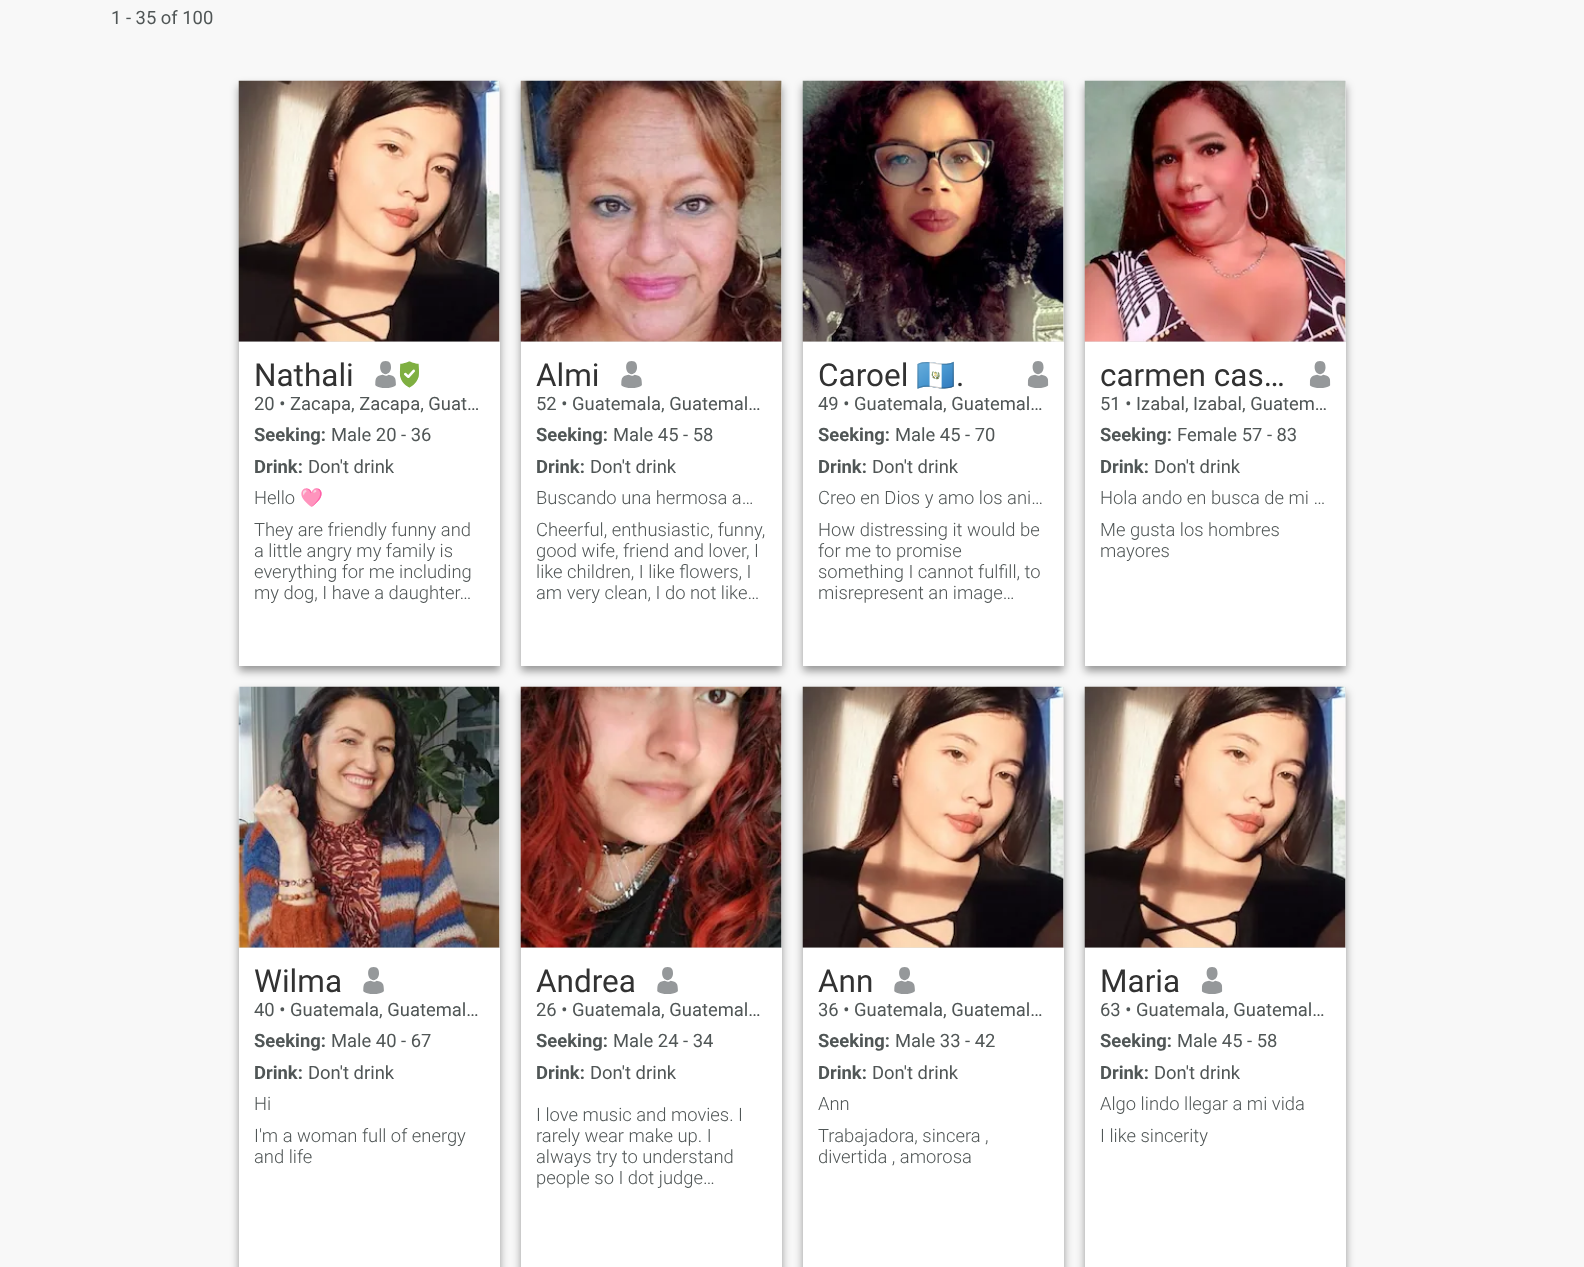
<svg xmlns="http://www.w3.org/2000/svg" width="1584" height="1267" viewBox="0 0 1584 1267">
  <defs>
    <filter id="blur1" x="-50%" y="-200%" width="200%" height="500%"><feGaussianBlur stdDeviation="4.5"/></filter>
    <clipPath id="clip1"><rect x="255" y="488" width="230" height="21"/></clipPath>
  </defs>
  <rect width="100%" height="100%" fill="#f8f8f8"/>
  <text x="111" y="24" font-family="Roboto" font-size="18.4" fill="#505656">1 - 35 of 100</text>
  <rect x="239" y="86" width="261" height="585" fill="#000000" fill-opacity="0.4" filter="url(#blur1)"/>
  <rect x="239" y="342" width="261" height="324" fill="#ffffff"/>
  <rect x="239" y="81" width="261" height="261" fill="#e0e0e0"/>
  <image x="238" y="80" width="262" height="262" href="img1.png"/>
  <text x="254" y="386" font-family="Roboto" font-size="31.5" fill="#323232">Nathali</text>
  <image x="375" y="361" width="21" height="27" href="img2.png"/>
  <image x="399" y="361" width="20" height="27" href="img3.png"/>
  <text x="254" y="410" font-family="Roboto" font-size="18.4" fill="#505656">20 • Zacapa, Zacapa, Guat…</text>
  <text x="254" y="441" font-family="Roboto" font-size="18.4" font-weight="bold" fill="#505656">Seeking:</text>
  <text x="331" y="441" font-family="Roboto" font-size="18.4" fill="#505656">Male 20 - 36</text>
  <text x="254" y="473" font-family="Roboto" font-size="18.4" font-weight="bold" fill="#505656">Drink:</text>
  <text x="308" y="473" font-family="Roboto" font-size="18.4" fill="#505656">Don't drink</text>
  <text x="254" y="504" font-family="Roboto" font-size="18.4" font-weight="300" fill="#505656">Hello</text>
  <g clip-path="url(#clip1)">
    <text x="300" y="504" font-family="Noto Color Emoji" font-size="18.4" fill="#505656">🩷</text>
  </g>
  <text x="254" y="536" font-family="Roboto" font-size="18.4" font-weight="300" fill="#505656">They are friendly funny and</text>
  <text x="254" y="557" font-family="Roboto" font-size="18.4" font-weight="300" fill="#505656">a little angry my family is</text>
  <text x="254" y="578" font-family="Roboto" font-size="18.4" font-weight="300" fill="#505656">everything for me including</text>
  <text x="254" y="599" font-family="Roboto" font-size="18.4" font-weight="300" fill="#505656">my dog, I have a daughter…</text>
  <rect x="521" y="86" width="261" height="585" fill="#000000" fill-opacity="0.4" filter="url(#blur1)"/>
  <rect x="521" y="342" width="261" height="324" fill="#ffffff"/>
  <rect x="521" y="81" width="261" height="261" fill="#e0e0e0"/>
  <image x="520" y="80" width="262" height="262" href="img4.png"/>
  <text x="536" y="386" font-family="Roboto" font-size="31.5" fill="#323232">Almi</text>
  <image x="621" y="361" width="21" height="27" href="img2.png"/>
  <text x="536" y="410" font-family="Roboto" font-size="18.4" fill="#505656">52 • Guatemala, Guatemal…</text>
  <text x="536" y="441" font-family="Roboto" font-size="18.4" font-weight="bold" fill="#505656">Seeking:</text>
  <text x="613" y="441" font-family="Roboto" font-size="18.4" fill="#505656">Male 45 - 58</text>
  <text x="536" y="473" font-family="Roboto" font-size="18.4" font-weight="bold" fill="#505656">Drink:</text>
  <text x="590" y="473" font-family="Roboto" font-size="18.4" fill="#505656">Don't drink</text>
  <text x="536" y="504" font-family="Roboto" font-size="18.4" font-weight="300" fill="#505656">Buscando una hermosa a…</text>
  <text x="536" y="536" font-family="Roboto" font-size="18.4" font-weight="300" fill="#505656">Cheerful, enthusiastic, funny,</text>
  <text x="536" y="557" font-family="Roboto" font-size="18.4" font-weight="300" fill="#505656">good wife, friend and lover, I</text>
  <text x="536" y="578" font-family="Roboto" font-size="18.4" font-weight="300" fill="#505656">like children, I like flowers, I</text>
  <text x="536" y="599" font-family="Roboto" font-size="18.4" font-weight="300" fill="#505656">am very clean, I do not like…</text>
  <rect x="803" y="86" width="261" height="585" fill="#000000" fill-opacity="0.4" filter="url(#blur1)"/>
  <rect x="803" y="342" width="261" height="324" fill="#ffffff"/>
  <rect x="803" y="81" width="261" height="261" fill="#e0e0e0"/>
  <image x="802" y="80" width="262" height="262" href="img5.png"/>
  <text x="818" y="386" font-family="Roboto" font-size="31.5" fill="#323232">Caroel</text>
  <text x="916" y="386" font-family="Noto Color Emoji" font-size="31.5" fill="#323232">🇬🇹</text>
  <text x="956" y="386" font-family="Roboto" font-size="31.5" fill="#323232">.</text>
  <image x="1027" y="361" width="22" height="27" href="img6.png"/>
  <text x="818" y="410" font-family="Roboto" font-size="18.4" fill="#505656">49 • Guatemala, Guatemal…</text>
  <text x="818" y="441" font-family="Roboto" font-size="18.4" font-weight="bold" fill="#505656">Seeking:</text>
  <text x="895" y="441" font-family="Roboto" font-size="18.4" fill="#505656">Male 45 - 70</text>
  <text x="818" y="473" font-family="Roboto" font-size="18.4" font-weight="bold" fill="#505656">Drink:</text>
  <text x="872" y="473" font-family="Roboto" font-size="18.4" fill="#505656">Don't drink</text>
  <text x="818" y="504" font-family="Roboto" font-size="18.4" font-weight="300" fill="#505656">Creo en Dios y amo los ani…</text>
  <text x="818" y="536" font-family="Roboto" font-size="18.4" font-weight="300" fill="#505656">How distressing it would be</text>
  <text x="818" y="557" font-family="Roboto" font-size="18.4" font-weight="300" fill="#505656">for me to promise</text>
  <text x="818" y="578" font-family="Roboto" font-size="18.4" font-weight="300" fill="#505656">something I cannot fulfill, to</text>
  <text x="818" y="599" font-family="Roboto" font-size="18.4" font-weight="300" fill="#505656">misrepresent an image…</text>
  <rect x="1085" y="86" width="261" height="585" fill="#000000" fill-opacity="0.4" filter="url(#blur1)"/>
  <rect x="1085" y="342" width="261" height="324" fill="#ffffff"/>
  <rect x="1085" y="81" width="261" height="261" fill="#e0e0e0"/>
  <image x="1084" y="80" width="262" height="262" href="img7.png"/>
  <text x="1100" y="386" font-family="Roboto" font-size="31.5" fill="#323232">carmen cas…</text>
  <image x="1309" y="361" width="22" height="27" href="img6.png"/>
  <text x="1100" y="410" font-family="Roboto" font-size="18.4" fill="#505656">51 • Izabal, Izabal, Guatem…</text>
  <text x="1100" y="441" font-family="Roboto" font-size="18.4" font-weight="bold" fill="#505656">Seeking:</text>
  <text x="1177" y="441" font-family="Roboto" font-size="18.4" fill="#505656">Female 57 - 83</text>
  <text x="1100" y="473" font-family="Roboto" font-size="18.4" font-weight="bold" fill="#505656">Drink:</text>
  <text x="1154" y="473" font-family="Roboto" font-size="18.4" fill="#505656">Don't drink</text>
  <text x="1100" y="504" font-family="Roboto" font-size="18.4" font-weight="300" fill="#505656">Hola ando en busca de mi …</text>
  <text x="1100" y="536" font-family="Roboto" font-size="18.4" font-weight="300" fill="#505656">Me gusta los hombres</text>
  <text x="1100" y="557" font-family="Roboto" font-size="18.4" font-weight="300" fill="#505656">mayores</text>
  <rect x="239" y="692" width="261" height="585" fill="#000000" fill-opacity="0.4" filter="url(#blur1)"/>
  <rect x="239" y="948" width="261" height="319" fill="#ffffff"/>
  <rect x="239" y="687" width="261" height="261" fill="#e0e0e0"/>
  <image x="238" y="686" width="262" height="262" href="img8.png"/>
  <text x="254" y="992" font-family="Roboto" font-size="31.5" fill="#323232">Wilma</text>
  <image x="363" y="967" width="21" height="27" href="img9.png"/>
  <text x="254" y="1016" font-family="Roboto" font-size="18.4" fill="#505656">40 • Guatemala, Guatemal…</text>
  <text x="254" y="1047" font-family="Roboto" font-size="18.4" font-weight="bold" fill="#505656">Seeking:</text>
  <text x="331" y="1047" font-family="Roboto" font-size="18.4" fill="#505656">Male 40 - 67</text>
  <text x="254" y="1079" font-family="Roboto" font-size="18.4" font-weight="bold" fill="#505656">Drink:</text>
  <text x="308" y="1079" font-family="Roboto" font-size="18.4" fill="#505656">Don't drink</text>
  <text x="254" y="1110" font-family="Roboto" font-size="18.4" font-weight="300" fill="#505656">Hi</text>
  <text x="254" y="1142" font-family="Roboto" font-size="18.4" font-weight="300" fill="#505656">I'm a woman full of energy</text>
  <text x="254" y="1163" font-family="Roboto" font-size="18.4" font-weight="300" fill="#505656">and life</text>
  <rect x="521" y="692" width="261" height="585" fill="#000000" fill-opacity="0.4" filter="url(#blur1)"/>
  <rect x="521" y="948" width="261" height="319" fill="#ffffff"/>
  <rect x="521" y="687" width="261" height="261" fill="#e0e0e0"/>
  <image x="520" y="686" width="262" height="262" href="img10.png"/>
  <text x="536" y="992" font-family="Roboto" font-size="31.5" fill="#323232">Andrea</text>
  <image x="657" y="967" width="21" height="27" href="img9.png"/>
  <text x="536" y="1016" font-family="Roboto" font-size="18.4" fill="#505656">26 • Guatemala, Guatemal…</text>
  <text x="536" y="1047" font-family="Roboto" font-size="18.4" font-weight="bold" fill="#505656">Seeking:</text>
  <text x="613" y="1047" font-family="Roboto" font-size="18.4" fill="#505656">Male 24 - 34</text>
  <text x="536" y="1079" font-family="Roboto" font-size="18.4" font-weight="bold" fill="#505656">Drink:</text>
  <text x="590" y="1079" font-family="Roboto" font-size="18.4" fill="#505656">Don't drink</text>
  <text x="536" y="1121" font-family="Roboto" font-size="18.4" font-weight="300" fill="#505656">I love music and movies. I</text>
  <text x="536" y="1142" font-family="Roboto" font-size="18.4" font-weight="300" fill="#505656">rarely wear make up. I</text>
  <text x="536" y="1163" font-family="Roboto" font-size="18.4" font-weight="300" fill="#505656">always try to understand</text>
  <text x="536" y="1184" font-family="Roboto" font-size="18.4" font-weight="300" fill="#505656">people so I dot judge…</text>
  <rect x="803" y="692" width="261" height="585" fill="#000000" fill-opacity="0.4" filter="url(#blur1)"/>
  <rect x="803" y="948" width="261" height="319" fill="#ffffff"/>
  <rect x="803" y="687" width="261" height="261" fill="#e0e0e0"/>
  <image x="802" y="686" width="262" height="262" href="img1.png"/>
  <text x="818" y="992" font-family="Roboto" font-size="31.5" fill="#323232">Ann</text>
  <image x="894" y="967" width="21" height="27" href="img9.png"/>
  <text x="818" y="1016" font-family="Roboto" font-size="18.4" fill="#505656">36 • Guatemala, Guatemal…</text>
  <text x="818" y="1047" font-family="Roboto" font-size="18.4" font-weight="bold" fill="#505656">Seeking:</text>
  <text x="895" y="1047" font-family="Roboto" font-size="18.4" fill="#505656">Male 33 - 42</text>
  <text x="818" y="1079" font-family="Roboto" font-size="18.4" font-weight="bold" fill="#505656">Drink:</text>
  <text x="872" y="1079" font-family="Roboto" font-size="18.4" fill="#505656">Don't drink</text>
  <text x="818" y="1110" font-family="Roboto" font-size="18.4" font-weight="300" fill="#505656">Ann</text>
  <text x="818" y="1142" font-family="Roboto" font-size="18.4" font-weight="300" fill="#505656">Trabajadora, sincera ,</text>
  <text x="818" y="1163" font-family="Roboto" font-size="18.4" font-weight="300" fill="#505656">divertida , amorosa</text>
  <rect x="1085" y="692" width="261" height="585" fill="#000000" fill-opacity="0.4" filter="url(#blur1)"/>
  <rect x="1085" y="948" width="261" height="319" fill="#ffffff"/>
  <rect x="1085" y="687" width="261" height="261" fill="#e0e0e0"/>
  <image x="1084" y="686" width="262" height="262" href="img1.png"/>
  <text x="1100" y="992" font-family="Roboto" font-size="31.5" fill="#323232">Maria</text>
  <image x="1201" y="967" width="22" height="27" href="img11.png"/>
  <text x="1100" y="1016" font-family="Roboto" font-size="18.4" fill="#505656">63 • Guatemala, Guatemal…</text>
  <text x="1100" y="1047" font-family="Roboto" font-size="18.4" font-weight="bold" fill="#505656">Seeking:</text>
  <text x="1177" y="1047" font-family="Roboto" font-size="18.4" fill="#505656">Male 45 - 58</text>
  <text x="1100" y="1079" font-family="Roboto" font-size="18.4" font-weight="bold" fill="#505656">Drink:</text>
  <text x="1154" y="1079" font-family="Roboto" font-size="18.4" fill="#505656">Don't drink</text>
  <text x="1100" y="1110" font-family="Roboto" font-size="18.4" font-weight="300" fill="#505656">Algo lindo llegar a mi vida</text>
  <text x="1100" y="1142" font-family="Roboto" font-size="18.4" font-weight="300" fill="#505656">I like sincerity</text>
</svg>
